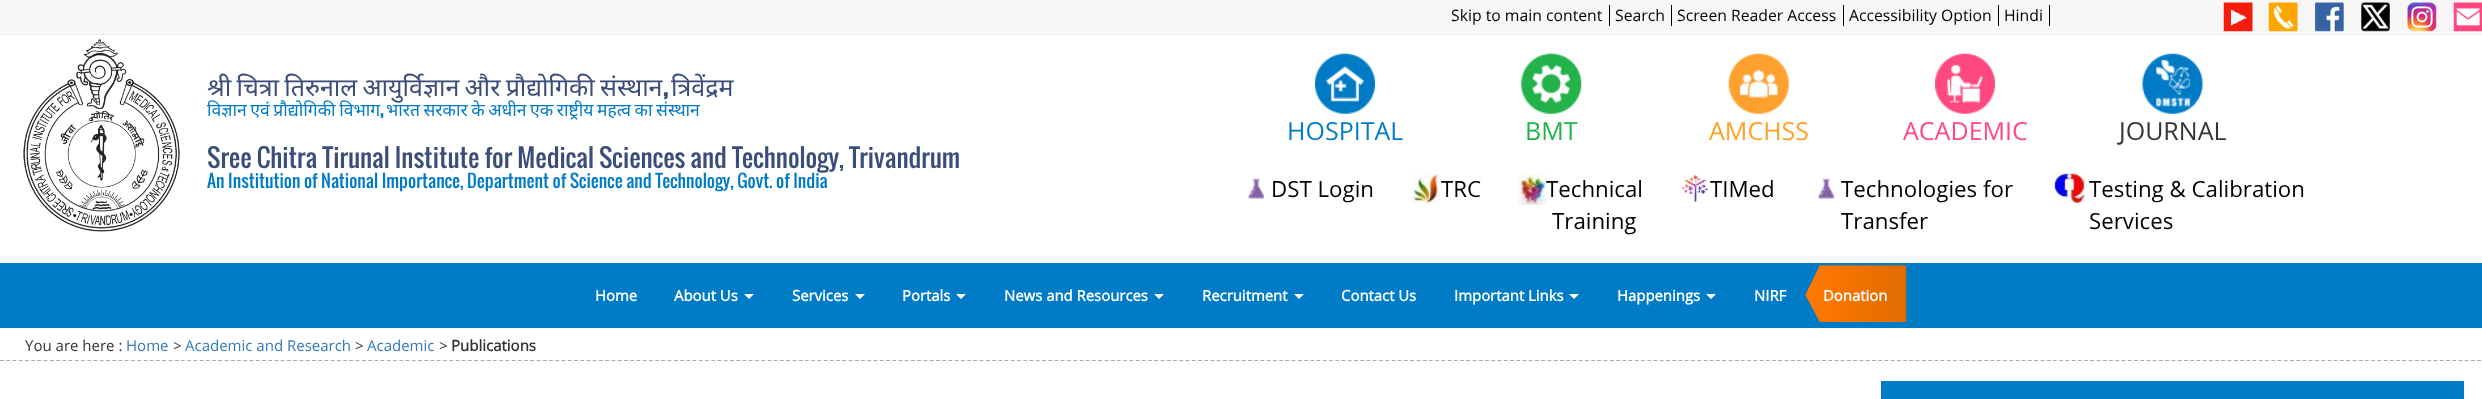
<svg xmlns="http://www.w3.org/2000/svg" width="2482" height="399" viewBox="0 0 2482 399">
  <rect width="100%" height="100%" fill="#ffffff"/>
  <rect x="0" y="0" width="2482" height="34" fill="#f7f7f7"/>
  <rect x="0" y="34" width="2482" height="1" fill="#ebebeb"/>
  <text x="1451" y="21" font-family="Open Sans" font-size="15.75" fill="#000000">Skip to main content</text>
  <rect x="1609" y="5" width="1" height="21" fill="#000000"/>
  <text x="1615" y="21" font-family="Open Sans" font-size="15.75" fill="#000000">Search</text>
  <rect x="1671" y="5" width="1" height="21" fill="#000000"/>
  <text x="1677" y="21" font-family="Open Sans" font-size="15.75" fill="#000000">Screen Reader Access</text>
  <rect x="1843" y="5" width="1" height="21" fill="#000000"/>
  <text x="1849" y="21" font-family="Open Sans" font-size="15.75" fill="#000000">Accessibility Option</text>
  <rect x="1998" y="5" width="1" height="21" fill="#000000"/>
  <text x="2004" y="21" font-family="Open Sans" font-size="15.75" fill="#000000">Hindi</text>
  <rect x="2049" y="5" width="1" height="21" fill="#000000"/>
  <image x="2223" y="2" width="30" height="30" href="img1.png"/>
  <image x="2268" y="2" width="30" height="30" href="img2.png"/>
  <image x="2315" y="2" width="29" height="30" href="img3.png"/>
  <image x="2361" y="2" width="29" height="30" href="img4.png"/>
  <image x="2407" y="2" width="30" height="30" href="img5.png"/>
  <image x="2453" y="2" width="29" height="30" href="img6.png"/>
  <image x="23" y="39" width="157" height="193" href="img7.png"/>
  <text x="207" y="96" word-spacing="-1.25" font-family="Noto Sans" font-size="25" fill="#3b4d7a">श्री चित्रा तिरुनाल आयुर्विज्ञान और प्रौद्योगिकी संस्थान</text>
  <text x="663" y="96" font-family="Oswald" font-size="25" font-weight="bold" fill="#3b4d7a">,</text>
  <text x="671" y="96" font-family="Noto Sans" font-size="25" fill="#3b4d7a">त्रिवेंद्रम</text>
  <text x="207" y="116" word-spacing="-1" font-family="Noto Sans" font-size="17.5" fill="#007bc5">विज्ञान एवं प्रौद्योगिकी विभाग</text>
  <text x="380" y="116" font-family="Oswald" font-size="17.5" font-weight="bold" fill="#007bc5">,</text>
  <text x="386" y="116" word-spacing="-1" font-family="Noto Sans" font-size="17.5" fill="#007bc5">भारत सरकार के अधीन एक राष्ट्रीय महत्व का संस्थान</text>
  <text x="207" y="168" font-family="Oswald" font-size="25" fill="#3b4d7a">Sree Chitra Tirunal Institute for Medical Sciences and Technology, Trivandrum</text>
  <text x="207" y="188" font-family="Oswald" font-size="17.5" fill="#007bc5">An Institution of National Importance, Department of Science and Technology, Govt. of India</text>
  <image x="1315" y="53" width="60" height="61" href="img8.png"/>
  <text x="1287" y="140" font-family="Open Sans" font-size="25" fill="#007bc5">HOSPITAL</text>
  <image x="1521" y="53" width="61" height="61" href="img9.png"/>
  <text x="1525" y="140" font-family="Open Sans" font-size="25" fill="#24b24b">BMT</text>
  <image x="1728" y="53" width="61" height="61" href="img10.png"/>
  <text x="1709" y="140" font-family="Open Sans" font-size="25" fill="#fea124">AMCHSS</text>
  <image x="1935" y="53" width="60" height="61" href="img11.png"/>
  <text x="1903" y="140" font-family="Open Sans" font-size="25" fill="#ff4981">ACADEMIC</text>
  <image x="2142" y="53" width="61" height="61" href="img12.png"/>
  <text x="2119" y="140" font-family="Open Sans" font-size="25" fill="#333333">JOURNAL</text>
  <image x="1247" y="178" width="18" height="21" href="img13.png"/>
  <text x="1271" y="197" font-family="Open Sans" font-size="22.25" fill="#000000">DST Login</text>
  <image x="1411" y="173" width="30" height="31" href="img14.png"/>
  <text x="1441" y="197" font-family="Open Sans" font-size="22.25" fill="#000000">TRC</text>
  <image x="1518" y="173" width="29" height="32" href="img15.png"/>
  <text x="1546" y="197" font-family="Open Sans" font-size="22.25" fill="#000000">Technical</text>
  <text x="1552" y="229" font-family="Open Sans" font-size="22.25" fill="#000000">Training</text>
  <image x="1681" y="174" width="27" height="29" href="img16.png"/>
  <text x="1710" y="197" font-family="Open Sans" font-size="22.25" fill="#000000">TIMed</text>
  <image x="1817" y="178" width="18" height="21" href="img13.png"/>
  <text x="1841" y="197" font-family="Open Sans" font-size="22.25" fill="#000000">Technologies for</text>
  <text x="1841" y="229" font-family="Open Sans" font-size="22.25" fill="#000000">Transfer</text>
  <image x="2050" y="173" width="39" height="31" href="img17.png"/>
  <text x="2089" y="197" font-family="Open Sans" font-size="22.25" fill="#000000">Testing &amp; Calibration</text>
  <text x="2089" y="229" font-family="Open Sans" font-size="22.25" fill="#000000">Services</text>
  <rect x="0" y="263" width="2482" height="65" fill="#007bc5"/>
  <text x="595" y="301" font-family="Open Sans" font-size="14.9" font-weight="bold" fill="#ffffff">Home</text>
  <text x="674" y="301" font-family="Open Sans" font-size="14.9" font-weight="bold" fill="#ffffff">About Us</text>
  <path d="M744 294H754L749 299Z" fill="#ffffff"/>
  <text x="792" y="301" font-family="Open Sans" font-size="14.9" font-weight="bold" fill="#ffffff">Services</text>
  <path d="M855 294H865L860 299Z" fill="#ffffff"/>
  <text x="902" y="301" font-family="Open Sans" font-size="14.9" font-weight="bold" fill="#ffffff">Portals</text>
  <path d="M956 294H966L961 299Z" fill="#ffffff"/>
  <text x="1004" y="301" font-family="Open Sans" font-size="14.9" font-weight="bold" fill="#ffffff">News and Resources</text>
  <path d="M1154 294H1164L1159 299Z" fill="#ffffff"/>
  <text x="1202" y="301" font-family="Open Sans" font-size="14.9" font-weight="bold" fill="#ffffff">Recruitment</text>
  <path d="M1294 294H1304L1299 299Z" fill="#ffffff"/>
  <text x="1341" y="301" font-family="Open Sans" font-size="14.9" font-weight="bold" fill="#ffffff">Contact Us</text>
  <text x="1454" y="301" font-family="Open Sans" font-size="14.9" font-weight="bold" fill="#ffffff">Important Links</text>
  <path d="M1569 294H1579L1574 299Z" fill="#ffffff"/>
  <text x="1617" y="301" font-family="Open Sans" font-size="14.9" font-weight="bold" fill="#ffffff">Happenings</text>
  <path d="M1706 294H1716L1711 299Z" fill="#ffffff"/>
  <text x="1754" y="301" font-family="Open Sans" font-size="14.9" font-weight="bold" fill="#ffffff">NIRF</text>
  <image x="1805" y="265" width="102" height="57" href="img18.png"/>
  <text x="1823" y="301" font-family="Open Sans" font-size="14.9" font-weight="bold" fill="#ffffff">Donation</text>
  <path d="M0 360.5H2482.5" fill="none" stroke="#aaaaaa" stroke-width="1.2" stroke-dasharray="3.75 2.49"/>
  <text x="25" y="351" font-family="Open Sans" font-size="15" fill="#333333">You are here :</text>
  <text x="126" y="351" font-family="Open Sans" font-size="15" fill="#337ab7">Home</text>
  <text x="173" y="351" font-family="Open Sans" font-size="15" fill="#333333">&gt;</text>
  <text x="185" y="351" font-family="Open Sans" font-size="15" fill="#337ab7">Academic and Research</text>
  <text x="355" y="351" font-family="Open Sans" font-size="15" fill="#333333">&gt;</text>
  <text x="367" y="351" font-family="Open Sans" font-size="15" fill="#337ab7">Academic</text>
  <text x="439" y="351" font-family="Open Sans" font-size="15" fill="#333333">&gt;</text>
  <text x="451" y="351" font-family="Open Sans" font-size="15" font-weight="bold" fill="#333333">Publications</text>
  <rect x="1881" y="381" width="583" height="18" fill="#007bc5"/>
</svg>
